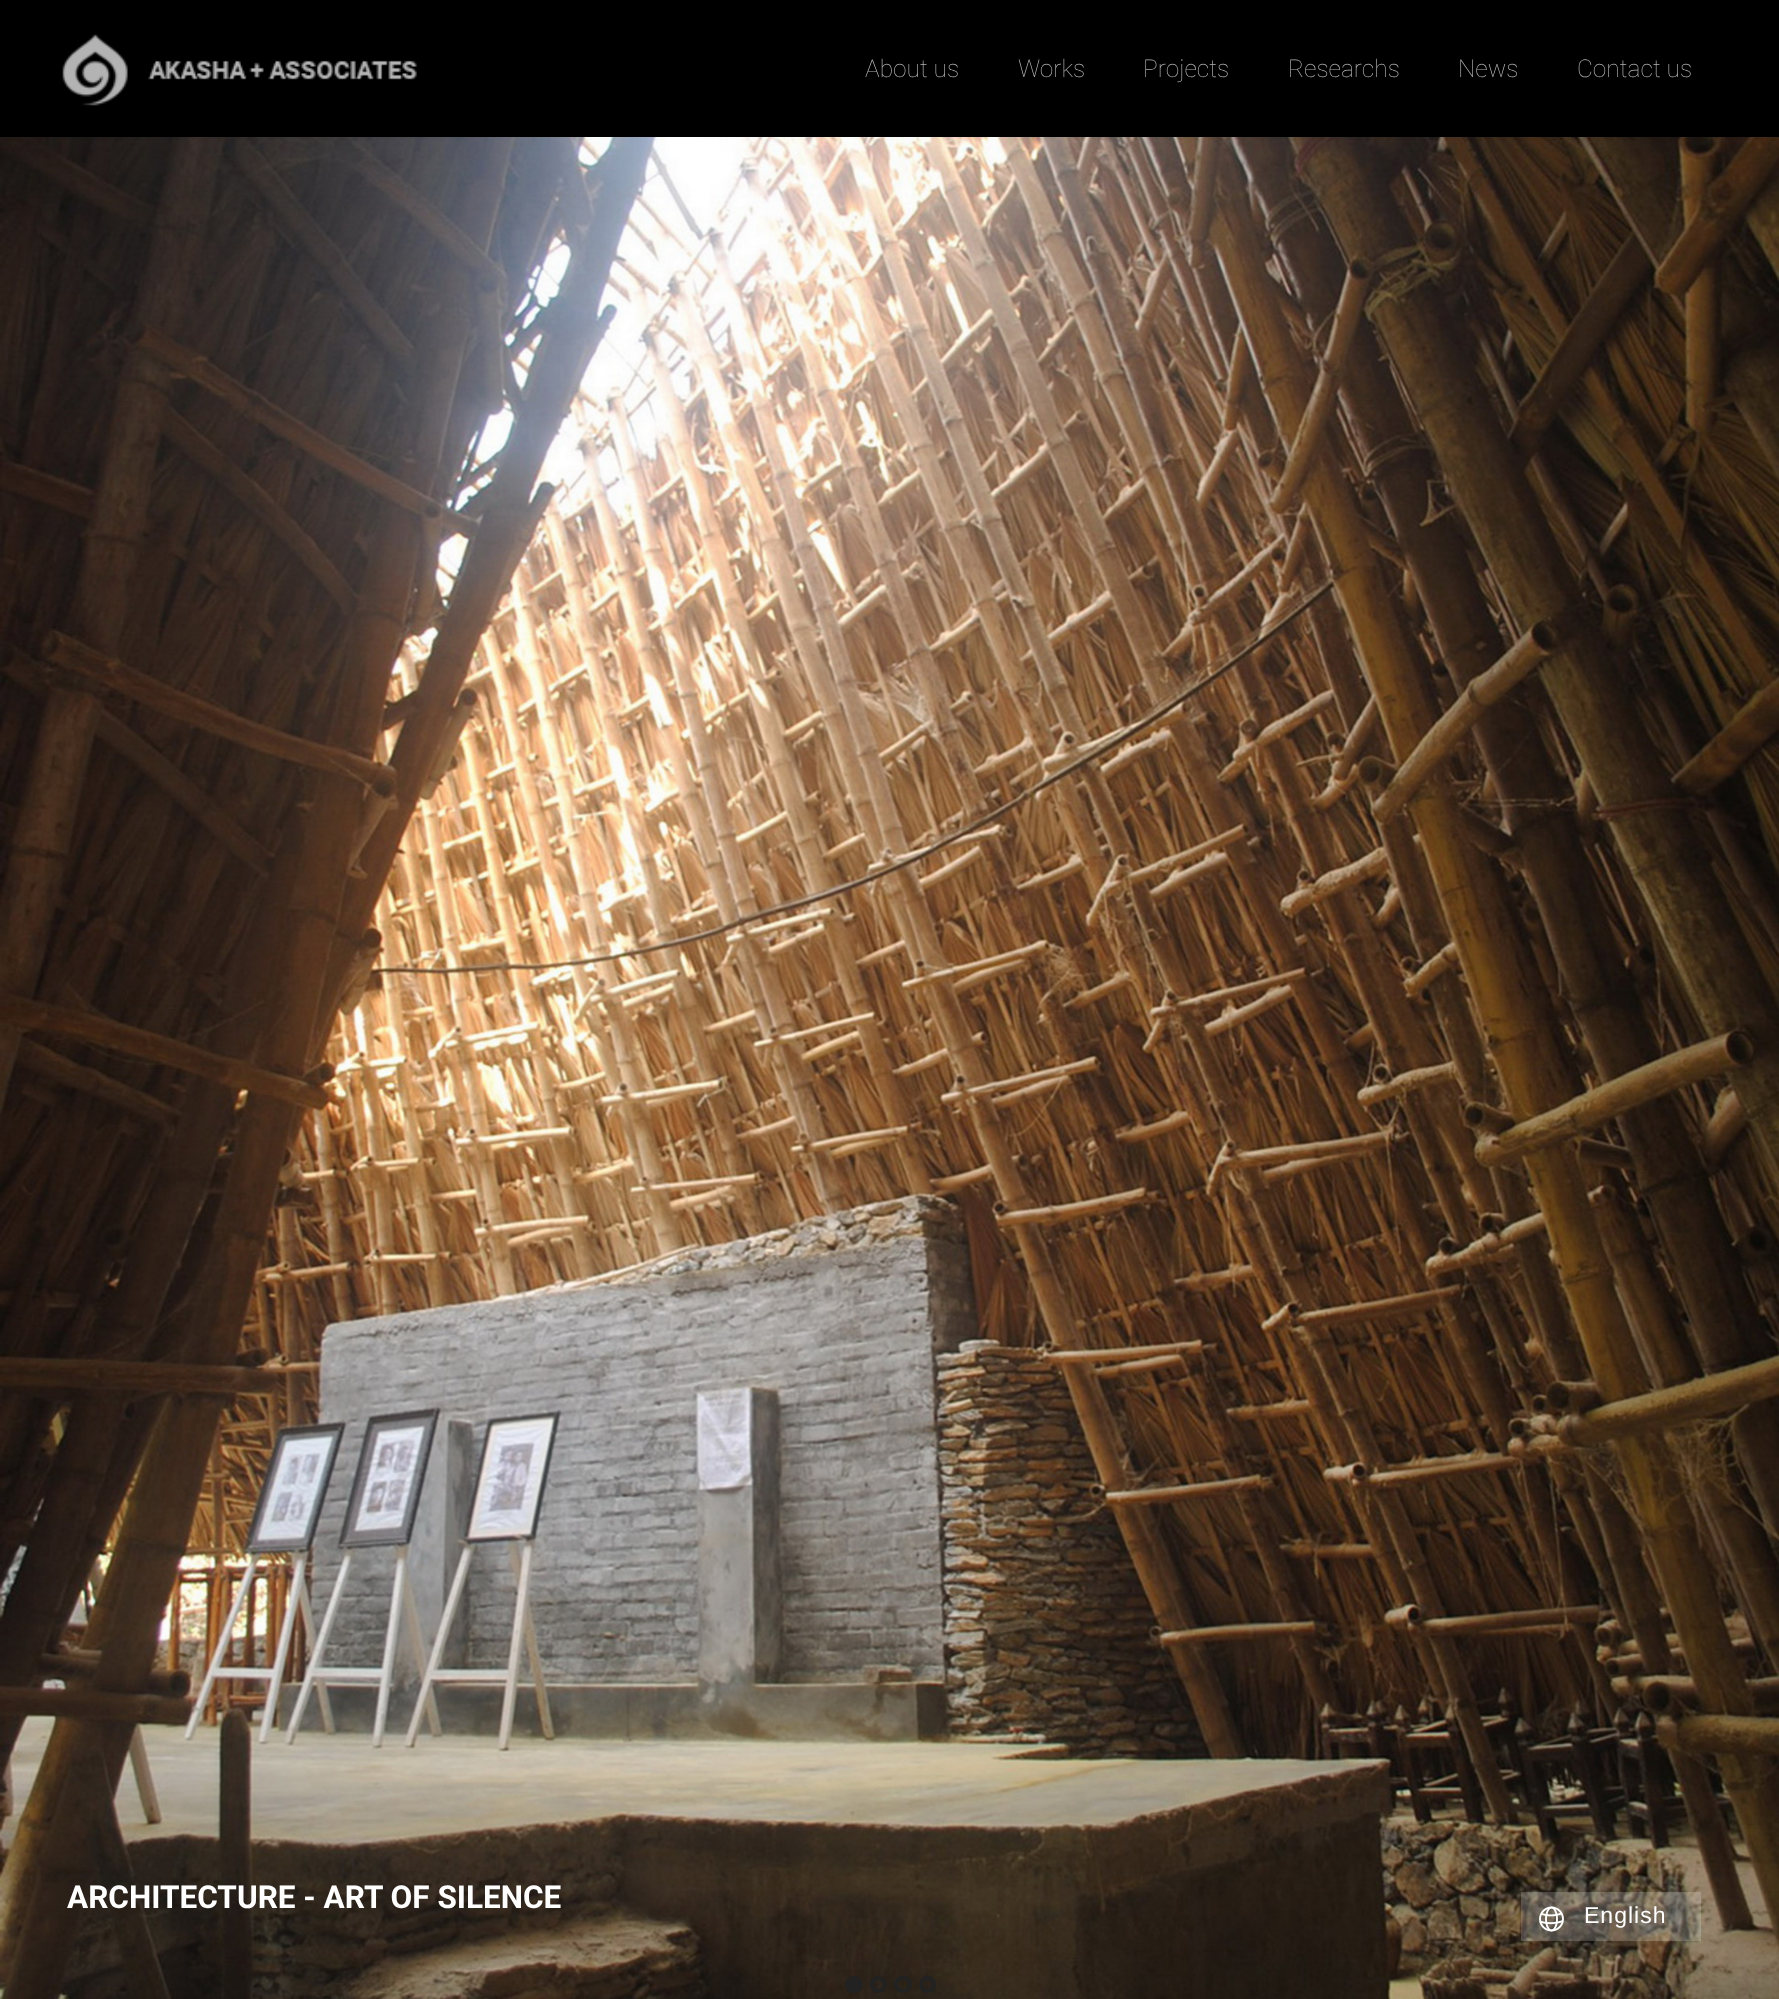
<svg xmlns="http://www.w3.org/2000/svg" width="1779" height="1999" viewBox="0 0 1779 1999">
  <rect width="100%" height="100%" fill="#ffffff"/>
  <rect x="0" y="0" width="1779" height="137" fill="#000000"/>
  <image x="62" y="34" width="355" height="72" href="img1.png"/>
  <text x="865" y="77" font-family="Roboto" font-size="24.5" font-weight="100" fill="#b3b3b3">About us</text>
  <text x="1018" y="77" font-family="Roboto" font-size="24.5" font-weight="100" fill="#b3b3b3">Works</text>
  <text x="1143" y="77" font-family="Roboto" font-size="24.5" font-weight="100" fill="#b3b3b3">Projects</text>
  <text x="1288" y="77" font-family="Roboto" font-size="24.5" font-weight="100" fill="#b3b3b3">Researchs</text>
  <text x="1458" y="77" font-family="Roboto" font-size="24.5" font-weight="100" fill="#b3b3b3">News</text>
  <text x="1577" y="77" font-family="Roboto" font-size="24.5" font-weight="100" fill="#b3b3b3">Contact us</text>
  <image x="0" y="137" width="1779" height="1862" href="img2.png"/>
  <text x="67" y="1908" font-family="Roboto" font-size="31.5" font-weight="bold" fill="#ffffff">ARCHITECTURE - ART OF SILENCE</text>
  <rect x="1521" y="1892" width="180" height="49" fill="#ffffff" fill-opacity="0.2"/>
  <image x="1539" y="1906" width="25" height="26" href="img3.png"/>
  <text x="1584" y="1923" font-family="Liberation Sans" font-size="23" letter-spacing="1" fill="#ffffff">English</text>
  <rect x="847" y="1978" width="14" height="13" rx="6.5" fill="#222222" stroke="#222222" stroke-width="4"/>
  <circle cx="878.5" cy="1984.5" r="6.5" fill="none" stroke="#222222" stroke-width="4"/>
  <rect x="896" y="1978" width="14" height="13" rx="6.5" fill="none" stroke="#222222" stroke-width="4"/>
  <circle cx="927.5" cy="1984.5" r="6.5" fill="none" stroke="#222222" stroke-width="4"/>
</svg>
